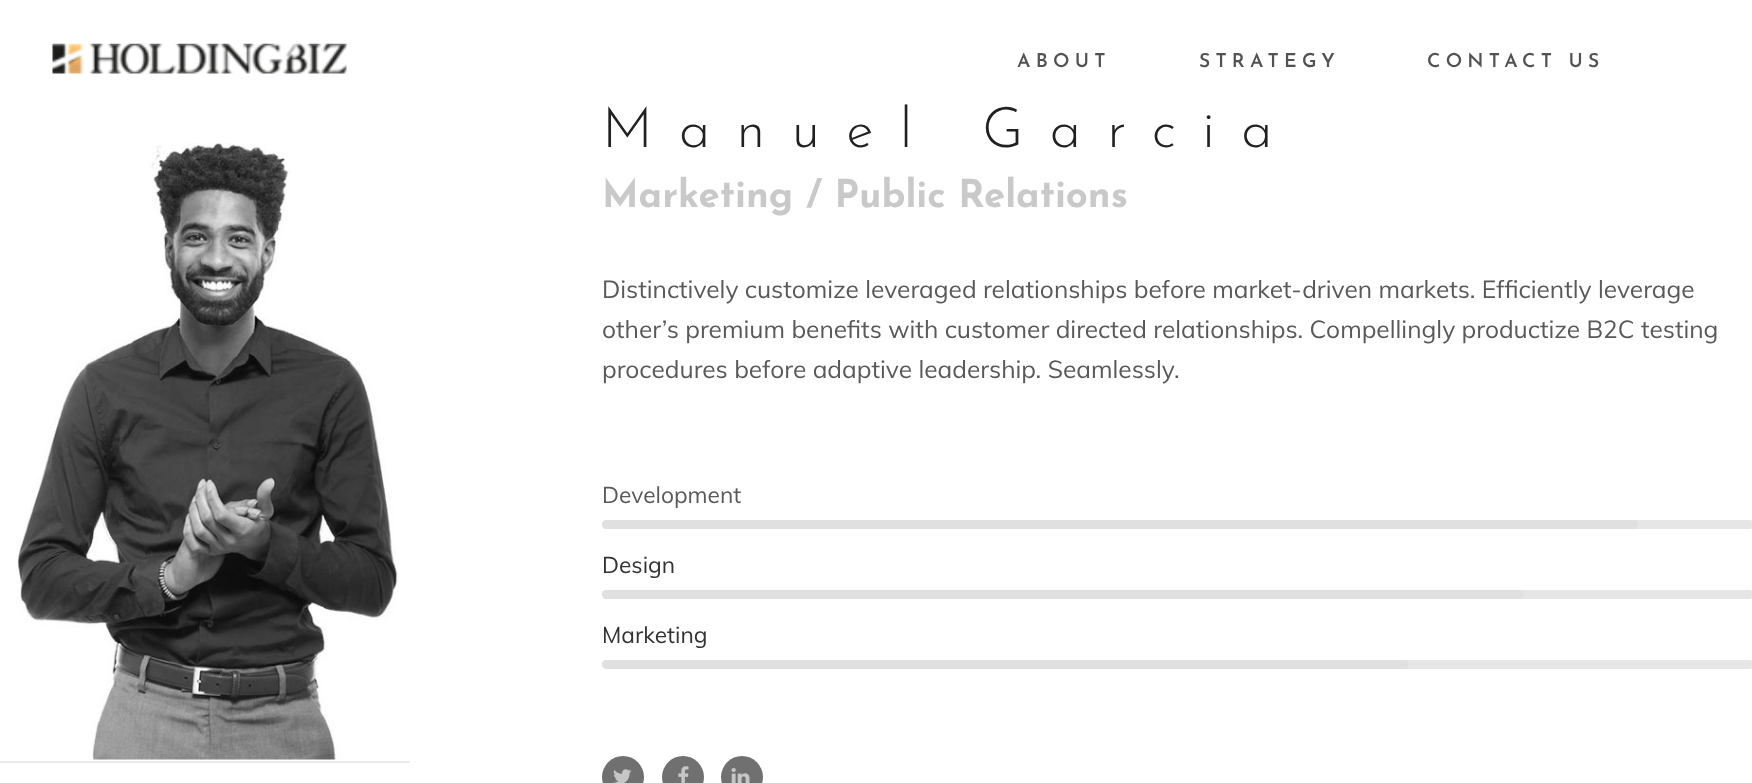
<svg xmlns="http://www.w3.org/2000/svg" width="1752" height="783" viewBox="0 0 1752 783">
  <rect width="100%" height="100%" fill="#ffffff"/>
  <image x="52" y="43" width="295" height="31" href="img1.png"/>
  <text x="1017" y="67" font-family="Josefin Sans" font-size="19.25" font-weight="600" letter-spacing="5.25" fill="#525252">ABOUT</text>
  <text x="1199" y="67" font-family="Josefin Sans" font-size="19.25" font-weight="600" letter-spacing="5.25" fill="#525252">STRATEGY</text>
  <text x="1427" y="67" font-family="Josefin Sans" font-size="19.25" font-weight="600" letter-spacing="5.25" fill="#525252">CONTACT US</text>
  <image x="16" y="143" width="383" height="617" href="img2.png"/>
  <rect x="0" y="761" width="410" height="2" fill="#ebebeb"/>
  <text x="602" y="147" font-family="Josefin Sans" font-size="56" font-weight="300" letter-spacing="26.25" fill="#212121">Manuel Garcia</text>
  <text x="602" y="207" font-family="Josefin Sans" font-size="38.5" font-weight="bold" fill="#c9c9c9">Marketing / Public Relations</text>
  <text x="602" y="298" font-family="Muli" font-size="24.5" fill="#595959">Distinctively customize leveraged relationships before market-driven markets. Efficiently leverage</text>
  <text x="602" y="338" font-family="Muli" font-size="24.5" fill="#595959">other’s premium benefits with customer directed relationships. Compellingly productize B2C testing</text>
  <text x="602" y="378" font-family="Muli" font-size="24.5" fill="#595959">procedures before adaptive leadership. Seamlessly.</text>
  <rect x="602" y="520" width="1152" height="9" rx="4.5" fill="#e6e6e6"/>
  <text x="602" y="503" font-family="Muli" font-size="22.75" fill="#595959">Development</text>
  <rect x="602" y="520" width="1036" height="9" rx="4.5" fill="#e0e0e0"/>
  <rect x="602" y="590" width="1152" height="9" rx="4.5" fill="#e6e6e6"/>
  <text x="602" y="573" font-family="Muli" font-size="22.75" fill="#333333">Design</text>
  <rect x="602" y="590" width="921" height="9" rx="4.5" fill="#e0e0e0"/>
  <rect x="602" y="660" width="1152" height="9" rx="4.5" fill="#e6e6e6"/>
  <text x="602" y="643" font-family="Muli" font-size="22.75" fill="#333333">Marketing</text>
  <rect x="602" y="660" width="807" height="9" rx="4.5" fill="#e0e0e0"/>
  <circle cx="623" cy="777" r="21" fill="#707070"/>
  <image x="613" y="769" width="19" height="14" href="img3.png"/>
  <circle cx="683" cy="777" r="21" fill="#707070"/>
  <image x="678" y="766" width="11" height="17" href="img4.png"/>
  <circle cx="742" cy="777" r="21" fill="#707070"/>
  <image x="731" y="768" width="19" height="15" href="img5.png"/>
</svg>
